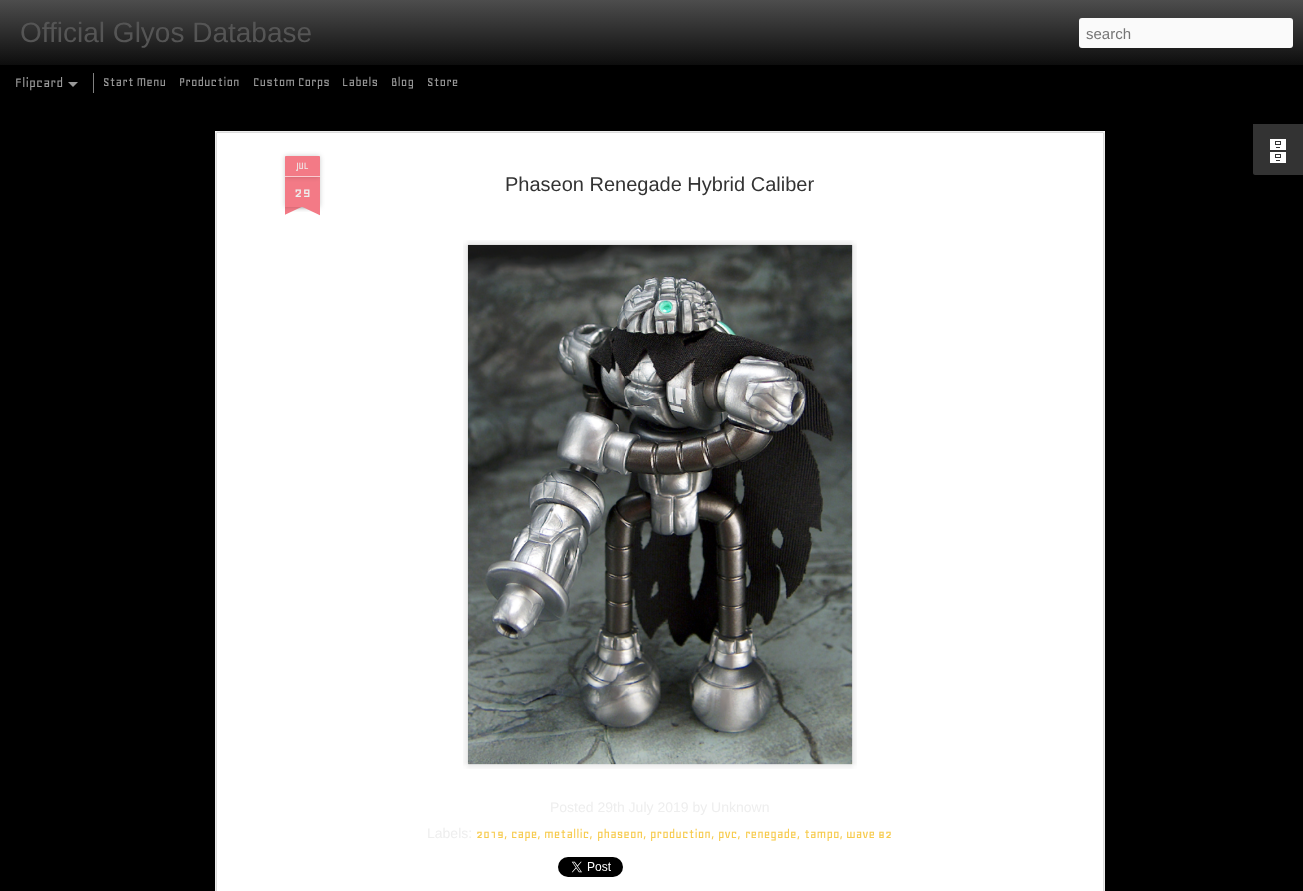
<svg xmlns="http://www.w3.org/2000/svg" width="1303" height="891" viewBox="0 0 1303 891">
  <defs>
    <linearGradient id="g1" gradientUnits="userSpaceOnUse" x1="0" y1="0" x2="0" y2="65"><stop offset="0" stop-color="#4d4d4d"/><stop offset="1" stop-color="#0d0d0d"/></linearGradient>
    <filter id="blur1" x="-50%" y="-200%" width="200%" height="500%"><feGaussianBlur stdDeviation="2.5"/></filter>
    <clipPath id="clip1"><rect x="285" y="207" width="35" height="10"/></clipPath>
    <clipPath id="clip2"><rect x="285" y="207" width="35" height="10"/></clipPath>
  </defs>
  <rect width="100%" height="100%" fill="#000000"/>
  <rect x="0" y="0" width="1303" height="65" fill="url(#g1)"/>
  <text x="20" y="42" font-family="Liberation Sans" font-size="28" fill="#555555">Official Glyos Database</text>
  <rect x="1079" y="18" width="214" height="30" rx="3" fill="#fafafa"/>
  <text x="1086" y="39" font-family="Liberation Sans" font-size="15" fill="#757575">search</text>
  <text x="15" y="87" font-family="Geo" font-size="15" fill="#999999">Flipcard</text>
  <path d="M68 82H78L73 87Z" fill="#999999"/>
  <rect x="93" y="73" width="1" height="20" fill="#808080"/>
  <text x="103" y="86" font-family="Geo" font-size="14" fill="#999999">Start Menu</text>
  <text x="179" y="86" font-family="Geo" font-size="14" fill="#999999">Production</text>
  <text x="253" y="86" font-family="Geo" font-size="14" fill="#999999">Custom Corps</text>
  <text x="342" y="86" font-family="Geo" font-size="14" fill="#999999">Labels</text>
  <text x="391" y="86" font-family="Geo" font-size="14" fill="#999999">Blog</text>
  <text x="427" y="86" font-family="Geo" font-size="14" fill="#999999">Store</text>
  <path d="M1253 124H1303V175H1255C1254 175 1253 174 1253 173Z" fill="#333333"/>
  <image x="1270" y="139" width="16" height="24" href="img1.png"/>
  <rect x="215" y="131" width="890" height="760" fill="#ffffff"/>
  <image x="215" y="131" width="890" height="760" href="img2.png"/>
  <rect x="285" y="177" width="35" height="30" fill="#000000" fill-opacity="0.2" filter="url(#blur1)"/>
  <rect x="285" y="177" width="35" height="30" fill="#f37a86"/>
  <rect x="285" y="156" width="35" height="21" rx="1" fill="#000000" fill-opacity="0.2" filter="url(#blur1)"/>
  <path d="M286 156H319C319.5 156 320 156.5 320 157V177H285V157C285 156.5 285.5 156 286 156Z" fill="#f37a86"/>
  <rect x="285" y="176" width="35" height="1" fill="#facacf"/>
  <text x="296" y="169" font-family="Geo" font-size="11" fill="#eeeeee">JUL</text>
  <g clip-path="url(#clip1)">
    <rect x="276" y="197" width="50" height="10" fill="#000000" fill-opacity="0.2" filter="url(#blur1)"/>
  </g>
  <g clip-path="url(#clip2)">
    <path d="M276 208L321 187L325 196L280 217Z" fill="#f37a86"/>
  </g>
  <g clip-path="url(#clip1)">
    <rect x="279" y="197" width="50" height="10" fill="#000000" fill-opacity="0.2" filter="url(#blur1)"/>
  </g>
  <g clip-path="url(#clip2)">
    <path d="M283 187L328 208L324 217L279 196Z" fill="#f37a86"/>
  </g>
  <text x="294" y="197" font-family="Geo" font-size="17" fill="#eeeeee">29</text>
  <text x="505" y="191" font-family="Liberation Sans" font-size="20" fill="#333333">Phaseon Renegade Hybrid Caliber</text>
  <image x="463" y="240" width="394" height="529" href="img3.png"/>
  <image x="467" y="244" width="386" height="521" href="img4.png"/>
  <text x="550" y="812" font-family="Liberation Sans" font-size="14" fill="#eeeeee">Posted 29th July 2019 by Unknown</text>
  <text x="427" y="838" font-family="Liberation Sans" font-size="14" fill="#eeeeee">Labels:</text>
  <text x="476" y="838" font-family="Geo" font-size="14" fill="#f7cb4d">2019,</text>
  <text x="511" y="838" font-family="Geo" font-size="14" fill="#f7cb4d">cape,</text>
  <text x="544" y="838" font-family="Geo" font-size="14" fill="#f7cb4d">metallic,</text>
  <text x="597" y="838" font-family="Geo" font-size="14" fill="#f7cb4d">phaseon,</text>
  <text x="650" y="838" font-family="Geo" font-size="14" fill="#f7cb4d">production,</text>
  <text x="718" y="838" font-family="Geo" font-size="14" fill="#f7cb4d">pvc,</text>
  <text x="745" y="838" font-family="Geo" font-size="14" fill="#f7cb4d">renegade,</text>
  <text x="804" y="838" font-family="Geo" font-size="14" fill="#f7cb4d">tampo,</text>
  <text x="846" y="838" font-family="Geo" font-size="14" fill="#f7cb4d">wave 82</text>
  <image x="558" y="857" width="65" height="20" href="img5.png"/>
</svg>
